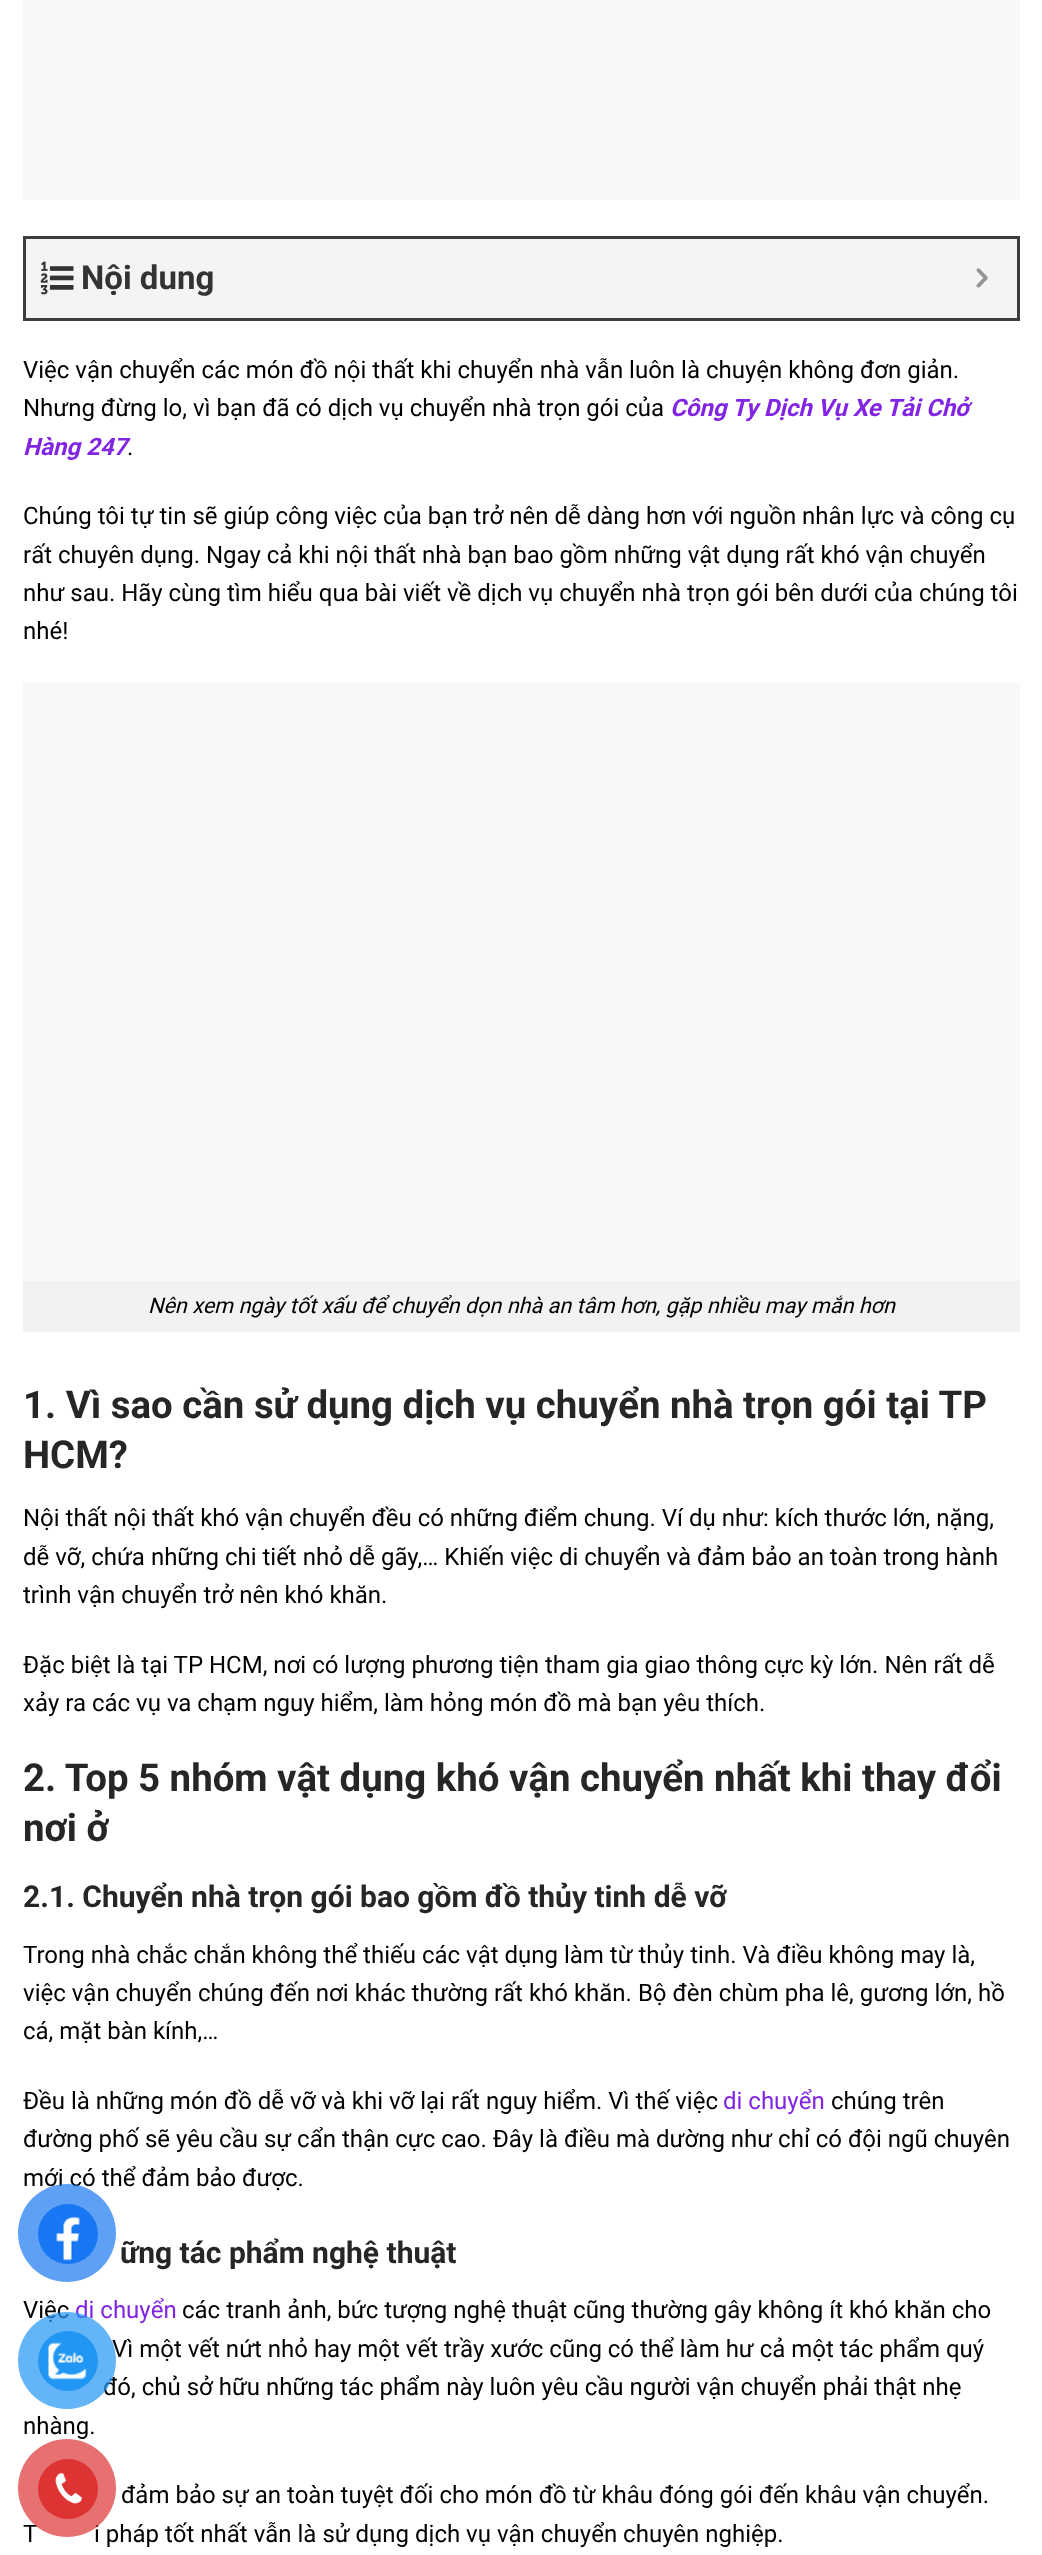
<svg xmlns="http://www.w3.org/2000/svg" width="1042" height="2555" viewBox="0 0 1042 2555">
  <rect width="100%" height="100%" fill="#ffffff"/>
  <rect x="23" y="0" width="997" height="200" fill="#f8f8f8"/>
  <rect x="24.5" y="237.5" width="994" height="82" fill="none" stroke="#3d3d3d" stroke-width="3"/>
  <rect x="26" y="239" width="991" height="79" fill="#f4f4f4"/>
  <image x="40" y="261" width="34" height="34" href="img1.png"/>
  <text x="81" y="289" font-family="Roboto" font-size="33" font-weight="bold" fill="#333333">Nội dung</text>
  <image x="976" y="268" width="12" height="20" href="img2.png"/>
  <text x="23" y="378" font-family="Roboto" font-size="24" fill="#000000">Việc vận chuyển các món đồ nội thất khi chuyển nhà vẫn luôn là chuyện không đơn giản.</text>
  <text x="23" y="416" font-family="Roboto" font-size="24" fill="#000000">Nhưng đừng lo, vì bạn đã có dịch vụ chuyển nhà trọn gói của</text>
  <text x="670" y="416" font-family="Roboto" font-size="24" font-weight="bold" font-style="italic" fill="#8224e3">Công Ty Dịch Vụ Xe Tải Chở</text>
  <text x="23" y="455" font-family="Roboto" font-size="24" font-weight="bold" font-style="italic" fill="#8224e3">Hàng 247</text>
  <text x="127" y="455" font-family="Roboto" font-size="24" fill="#000000">.</text>
  <text x="23" y="524" font-family="Roboto" font-size="24" fill="#000000">Chúng tôi tự tin sẽ giúp công việc của bạn trở nên dễ dàng hơn với nguồn nhân lực và công cụ</text>
  <text x="23" y="563" font-family="Roboto" font-size="24" fill="#000000">rất chuyên dụng. Ngay cả khi nội thất nhà bạn bao gồm những vật dụng rất khó vận chuyển</text>
  <text x="23" y="601" font-family="Roboto" font-size="24" fill="#000000">như sau. Hãy cùng tìm hiểu qua bài viết về dịch vụ chuyển nhà trọn gói bên dưới của chúng tôi</text>
  <text x="23" y="639" font-family="Roboto" font-size="24" fill="#000000">nhé!</text>
  <rect x="23" y="683" width="997" height="598" fill="#f8f8f8"/>
  <rect x="23" y="1281" width="997" height="51" fill="#f2f2f2"/>
  <text x="148" y="1313" font-family="Roboto" font-size="21.6" font-style="italic" fill="#000000">Nên xem ngày tốt xấu để chuyển dọn nhà an tâm hơn, gặp nhiều may mắn hơn</text>
  <text x="23" y="1418" font-family="Roboto" font-size="38.4" font-weight="bold" fill="#262626">1. Vì sao cần sử dụng dịch vụ chuyển nhà trọn gói tại TP</text>
  <text x="23" y="1468" font-family="Roboto" font-size="38.4" font-weight="bold" fill="#262626">HCM?</text>
  <text x="23" y="1526" font-family="Roboto" font-size="24" fill="#000000">Nội thất nội thất khó vận chuyển đều có những điểm chung. Ví dụ như: kích thước lớn, nặng,</text>
  <text x="23" y="1565" font-family="Roboto" font-size="24" fill="#000000">dễ vỡ, chứa những chi tiết nhỏ dễ gãy,… Khiến việc di chuyển và đảm bảo an toàn trong hành</text>
  <text x="23" y="1603" font-family="Roboto" font-size="24" fill="#000000">trình vận chuyển trở nên khó khăn.</text>
  <text x="23" y="1673" font-family="Roboto" font-size="24" fill="#000000">Đặc biệt là tại TP HCM, nơi có lượng phương tiện tham gia giao thông cực kỳ lớn. Nên rất dễ</text>
  <text x="23" y="1711" font-family="Roboto" font-size="24" fill="#000000">xảy ra các vụ va chạm nguy hiểm, làm hỏng món đồ mà bạn yêu thích.</text>
  <text x="23" y="1791" font-family="Roboto" font-size="38.4" font-weight="bold" fill="#262626">2. Top 5 nhóm vật dụng khó vận chuyển nhất khi thay đổi</text>
  <text x="23" y="1841" font-family="Roboto" font-size="38.4" font-weight="bold" fill="#262626">nơi ở</text>
  <text x="23" y="1907" font-family="Roboto" font-size="30" font-weight="bold" fill="#262626">2.1. Chuyển nhà trọn gói bao gồm đồ thủy tinh dễ vỡ</text>
  <text x="23" y="1963" font-family="Roboto" font-size="24" fill="#000000">Trong nhà chắc chắn không thể thiếu các vật dụng làm từ thủy tinh. Và điều không may là,</text>
  <text x="23" y="2001" font-family="Roboto" font-size="24" fill="#000000">việc vận chuyển chúng đến nơi khác thường rất khó khăn. Bộ đèn chùm pha lê, gương lớn, hồ</text>
  <text x="23" y="2039" font-family="Roboto" font-size="24" fill="#000000">cá, mặt bàn kính,…</text>
  <text x="23" y="2109" font-family="Roboto" font-size="24" fill="#000000">Đều là những món đồ dễ vỡ và khi vỡ lại rất nguy hiểm. Vì thế việc</text>
  <text x="723" y="2109" font-family="Roboto" font-size="24" fill="#8224e3">di chuyển</text>
  <text x="831" y="2109" font-family="Roboto" font-size="24" fill="#000000">chúng trên</text>
  <text x="23" y="2147" font-family="Roboto" font-size="24" fill="#000000">đường phố sẽ yêu cầu sự cẩn thận cực cao. Đây là điều mà dường như chỉ có đội ngũ chuyên</text>
  <text x="23" y="2186" font-family="Roboto" font-size="24" fill="#000000">mới có thể đảm bảo được.</text>
  <text x="120" y="2263" font-family="Roboto" font-size="30" font-weight="bold" fill="#262626">ững tác phẩm nghệ thuật</text>
  <text x="23" y="2318" font-family="Roboto" font-size="24" fill="#000000">Việc</text>
  <text x="75" y="2318" font-family="Roboto" font-size="24" fill="#8224e3">di chuyển</text>
  <text x="182" y="2318" font-family="Roboto" font-size="24" fill="#000000">các tranh ảnh, bức tượng nghệ thuật cũng thường gây không ít khó khăn cho</text>
  <text x="112" y="2357" font-family="Roboto" font-size="24" fill="#000000">Vì một vết nứt nhỏ hay một vết trầy xước cũng có thể làm hư cả một tác phẩm quý</text>
  <text x="103" y="2395" font-family="Roboto" font-size="24" fill="#000000">đó, chủ sở hữu những tác phẩm này luôn yêu cầu người vận chuyển phải thật nhẹ</text>
  <text x="23" y="2434" font-family="Roboto" font-size="24" fill="#000000">nhàng.</text>
  <text x="121" y="2503" font-family="Roboto" font-size="24" fill="#000000">đảm bảo sự an toàn tuyệt đối cho món đồ từ khâu đóng gói đến khâu vận chuyển.</text>
  <text x="23" y="2542" font-family="Roboto" font-size="24" fill="#000000">T</text>
  <text x="94" y="2542" font-family="Roboto" font-size="24" fill="#000000">i pháp tốt nhất vẫn là sử dụng dịch vụ vận chuyển chuyên nghiệp.</text>
  <circle cx="67" cy="2233" r="49" fill="#1877f2" fill-opacity="0.7"/>
  <circle cx="68" cy="2234" r="30" fill="#1877f2"/>
  <image x="56" y="2217" width="24" height="44" href="img3.png"/>
  <rect x="18" y="2312" width="98" height="97" rx="48.5" fill="#2196f3" fill-opacity="0.7"/>
  <circle cx="68" cy="2361" r="30" fill="#2196f3"/>
  <image x="48" y="2342" width="39" height="38" href="img4.png"/>
  <circle cx="67" cy="2488" r="49" fill="#dd3333" fill-opacity="0.7"/>
  <circle cx="68" cy="2489" r="30" fill="#dd3333"/>
  <image x="55" y="2472" width="27" height="32" href="img5.png"/>
</svg>
